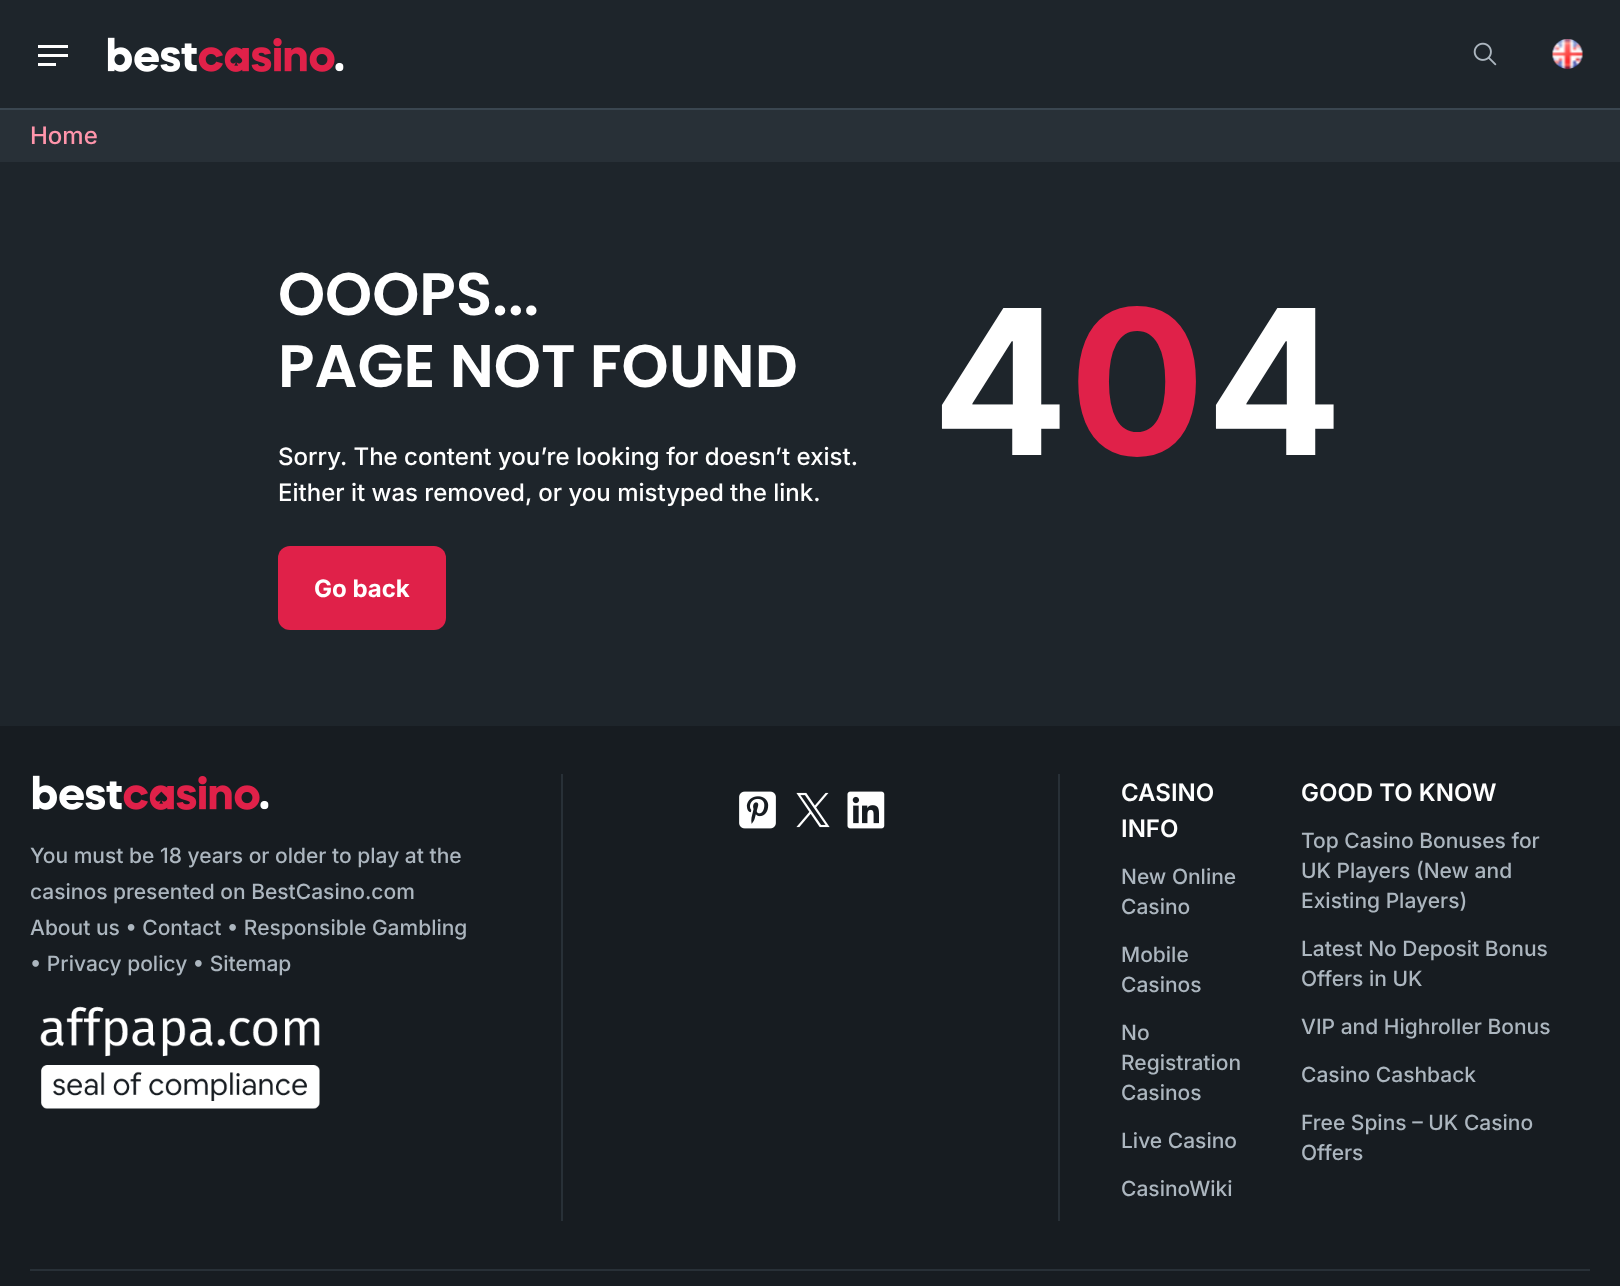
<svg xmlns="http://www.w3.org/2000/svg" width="1620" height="1286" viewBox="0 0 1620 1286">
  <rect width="100%" height="100%" fill="#1e252b"/>
  <rect x="0" y="108" width="1620" height="2" fill="#3a4650"/>
  <rect x="38" y="45" width="30" height="3" fill="#ffffff"/>
  <rect x="38" y="54" width="30" height="3" fill="#ffffff"/>
  <rect x="38" y="63" width="18" height="3" fill="#ffffff"/>
  <image x="107" y="37" width="237" height="35" href="img1.png"/>
  <image x="1473" y="42" width="24" height="24" href="img2.png"/>
  <image x="1552" y="39" width="31" height="30" href="img3.png"/>
  <rect x="0" y="110" width="1620" height="52" fill="#283037"/>
  <text x="30" y="144" font-family="Inter" font-size="24" font-weight="500" fill="#ff95ab">Home</text>
  <text x="278" y="315" font-family="Poppins" font-size="60" font-weight="600" fill="#ffffff">OOOPS...</text>
  <text x="278" y="387" font-family="Poppins" font-size="60" font-weight="600" fill="#ffffff">PAGE NOT FOUND</text>
  <text x="278" y="465" font-family="Inter" font-size="24" font-weight="500" fill="#ffffff">Sorry. The content you’re looking for doesn’t exist.</text>
  <text x="278" y="501" font-family="Inter" font-size="24" font-weight="500" fill="#ffffff">Either it was removed, or you mistyped the link.</text>
  <rect x="278" y="546" width="168" height="84" rx="12" fill="#e02149"/>
  <text x="314" y="597" font-family="Inter" font-size="24" font-weight="bold" fill="#ffffff">Go back</text>
  <text x="932" y="455" font-family="Inter" font-size="202" font-weight="bold" fill="#ffffff">4</text>
  <text x="1069" y="455" font-family="Inter" font-size="202" font-weight="bold" fill="#e02149">0</text>
  <text x="1206" y="455" font-family="Inter" font-size="202" font-weight="bold" fill="#ffffff">4</text>
  <rect x="0" y="726" width="1620" height="560" fill="#171c21"/>
  <rect x="30" y="1269" width="1560" height="2" fill="#283037"/>
  <image x="32" y="775" width="237" height="35" href="img4.png"/>
  <text x="30" y="863" font-family="Inter" font-size="21" font-weight="500" fill="#acb6bf">You must be 18 years or older to play at the</text>
  <text x="30" y="899" font-family="Inter" font-size="21" font-weight="500" fill="#acb6bf">casinos presented on BestCasino.com</text>
  <text x="30" y="935" font-family="Inter" font-size="21" font-weight="500" fill="#acb6bf">About us • Contact • Responsible Gambling</text>
  <text x="30" y="971" font-family="Inter" font-size="21" font-weight="500" fill="#acb6bf">• Privacy policy • Sitemap</text>
  <image x="40" y="1006" width="280" height="103" href="img5.png"/>
  <rect x="1058" y="774" width="2" height="447" fill="#283037"/>
  <rect x="561" y="774" width="2" height="447" fill="#283037"/>
  <image x="739" y="791" width="37" height="38" href="img6.png"/>
  <image x="796" y="792" width="34" height="36" href="img7.png"/>
  <image x="847" y="791" width="38" height="38" href="img8.png"/>
  <text x="1121" y="801" font-family="Inter" font-size="24" font-weight="600" fill="#ffffff">CASINO</text>
  <text x="1121" y="837" font-family="Inter" font-size="24" font-weight="600" fill="#ffffff">INFO</text>
  <text x="1121" y="884" font-family="Inter" font-size="21" font-weight="500" fill="#acb6bf">New Online</text>
  <text x="1121" y="914" font-family="Inter" font-size="21" font-weight="500" fill="#acb6bf">Casino</text>
  <text x="1121" y="962" font-family="Inter" font-size="21" font-weight="500" fill="#acb6bf">Mobile</text>
  <text x="1121" y="992" font-family="Inter" font-size="21" font-weight="500" fill="#acb6bf">Casinos</text>
  <text x="1121" y="1040" font-family="Inter" font-size="21" font-weight="500" fill="#acb6bf">No</text>
  <text x="1121" y="1070" font-family="Inter" font-size="21" font-weight="500" fill="#acb6bf">Registration</text>
  <text x="1121" y="1100" font-family="Inter" font-size="21" font-weight="500" fill="#acb6bf">Casinos</text>
  <text x="1121" y="1148" font-family="Inter" font-size="21" font-weight="500" fill="#acb6bf">Live Casino</text>
  <text x="1121" y="1196" font-family="Inter" font-size="21" font-weight="500" fill="#acb6bf">CasinoWiki</text>
  <text x="1301" y="801" font-family="Inter" font-size="24" font-weight="600" fill="#ffffff">GOOD TO KNOW</text>
  <text x="1301" y="848" font-family="Inter" font-size="21" font-weight="500" fill="#acb6bf">Top Casino Bonuses for</text>
  <text x="1301" y="878" font-family="Inter" font-size="21" font-weight="500" fill="#acb6bf">UK Players (New and</text>
  <text x="1301" y="908" font-family="Inter" font-size="21" font-weight="500" fill="#acb6bf">Existing Players)</text>
  <text x="1301" y="956" font-family="Inter" font-size="21" font-weight="500" fill="#acb6bf">Latest No Deposit Bonus</text>
  <text x="1301" y="986" font-family="Inter" font-size="21" font-weight="500" fill="#acb6bf">Offers in UK</text>
  <text x="1301" y="1034" font-family="Inter" font-size="21" font-weight="500" fill="#acb6bf">VIP and Highroller Bonus</text>
  <text x="1301" y="1082" font-family="Inter" font-size="21" font-weight="500" fill="#acb6bf">Casino Cashback</text>
  <text x="1301" y="1130" font-family="Inter" font-size="21" font-weight="500" fill="#acb6bf">Free Spins – UK Casino</text>
  <text x="1301" y="1160" font-family="Inter" font-size="21" font-weight="500" fill="#acb6bf">Offers</text>
</svg>
